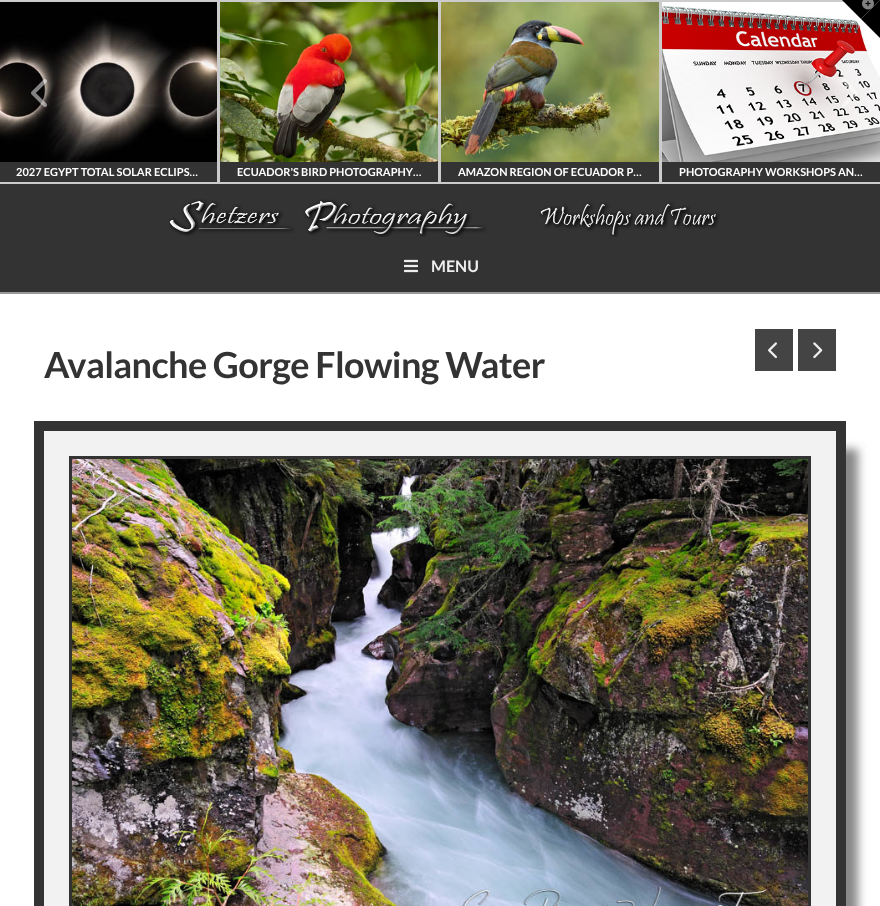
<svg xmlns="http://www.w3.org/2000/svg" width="880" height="906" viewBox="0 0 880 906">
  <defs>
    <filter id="blur1" x="-50%" y="-200%" width="200%" height="500%"><feGaussianBlur stdDeviation="5"/></filter>
  </defs>
  <rect width="100%" height="100%" fill="#ffffff"/>
  <rect x="0" y="0" width="880" height="2" fill="#cccccc"/>
  <image x="662" y="2" width="218" height="160" href="img7.png"/>
  <path d="M842 0H880L861 19Z" fill="#000000"/>
  <path d="M880 0V38L861 19Z" fill="#000000"/>
  <image x="862" y="0" width="12" height="10" href="img1.png"/>
  <rect x="0" y="184" width="880" height="108" fill="#333333"/>
  <image x="0" y="2" width="217" height="160" href="img4.png"/>
  <image x="31" y="79" width="16" height="28" href="img2.png"/>
  <image x="842" y="79" width="16" height="28" href="img3.png"/>
  <rect x="217" y="0" width="2" height="184" fill="#cccccc"/>
  <rect x="0" y="182" width="219" height="2" fill="#cccccc"/>
  <rect x="0" y="162" width="217" height="20" fill="#333333"/>
  <text x="16" y="176" font-family="Lato" font-size="11" font-weight="bold" fill="#ffffff">2027 EGYPT TOTAL SOLAR ECLIPS…</text>
  <image x="220" y="2" width="218" height="160" href="img5.png"/>
  <rect x="438" y="0" width="2" height="184" fill="#cccccc"/>
  <rect x="219" y="182" width="221" height="2" fill="#cccccc"/>
  <rect x="219" y="0" width="1" height="184" fill="#cccccc"/>
  <rect x="220" y="162" width="218" height="20" fill="#333333"/>
  <text x="237" y="176" font-family="Lato" font-size="11" font-weight="bold" fill="#ffffff">ECUADOR'S BIRD PHOTOGRAPHY…</text>
  <image x="441" y="2" width="218" height="160" href="img6.png"/>
  <rect x="659" y="0" width="2" height="184" fill="#cccccc"/>
  <rect x="440" y="182" width="440" height="2" fill="#cccccc"/>
  <rect x="440" y="0" width="1" height="184" fill="#cccccc"/>
  <rect x="441" y="162" width="218" height="20" fill="#333333"/>
  <text x="458" y="176" font-family="Lato" font-size="11" font-weight="bold" fill="#ffffff">AMAZON REGION OF ECUADOR P…</text>
  <rect x="661" y="0" width="1" height="184" fill="#cccccc"/>
  <rect x="662" y="162" width="218" height="20" fill="#333333"/>
  <text x="679" y="176" font-family="Lato" font-size="11" font-weight="bold" fill="#ffffff">PHOTOGRAPHY WORKSHOPS AN…</text>
  <image x="169" y="199" width="551" height="38" href="img8.png"/>
  <rect x="0" y="292" width="880" height="2" fill="#999999"/>
  <image x="404" y="259" width="14" height="14" href="img9.png"/>
  <text x="431" y="272" font-family="Lato" font-size="16" font-weight="bold" fill="#eeeeee">MENU</text>
  <text x="44" y="378" font-family="Lato" font-size="36" font-weight="bold" letter-spacing="-0.6" fill="#333333">Avalanche Gorge Flowing Water</text>
  <rect x="755" y="329" width="38" height="42" fill="#444444"/>
  <image x="768" y="342" width="9" height="17" href="img10.png"/>
  <rect x="798" y="329" width="38" height="42" fill="#444444"/>
  <image x="813" y="342" width="10" height="17" href="img11.png"/>
  <rect x="62" y="449" width="796" height="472" fill="#888888" filter="url(#blur1)"/>
  <rect x="56.5" y="443.5" width="767" height="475" fill="#333333" stroke="#f2f2f2" stroke-width="25"/>
  <image x="72" y="459" width="736" height="447" href="img12.png"/>
  <rect x="39" y="426" width="802" height="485" fill="none" stroke="#333333" stroke-width="10"/>
</svg>
